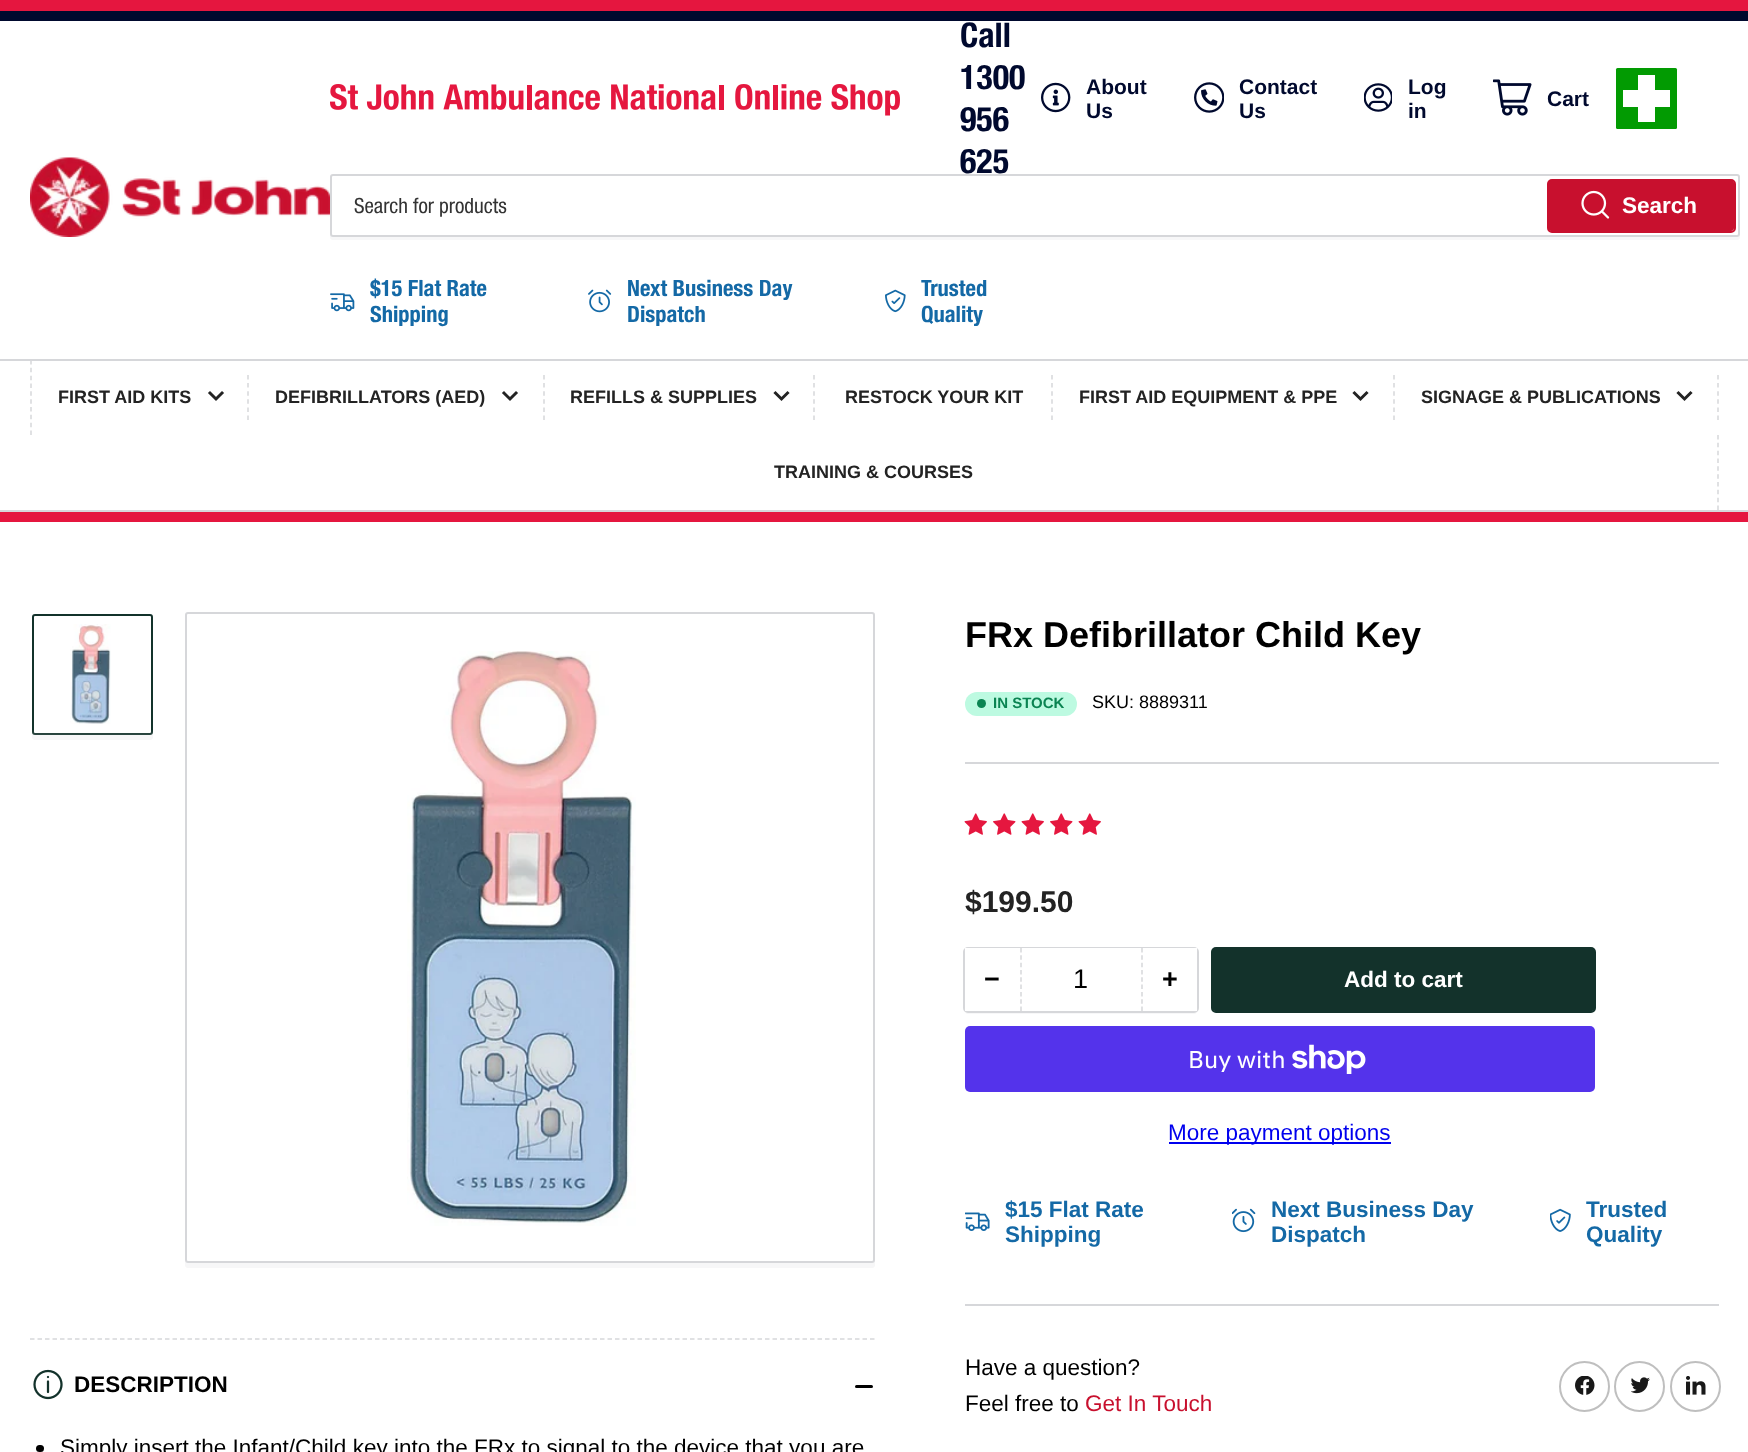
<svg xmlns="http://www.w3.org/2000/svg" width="1748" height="1452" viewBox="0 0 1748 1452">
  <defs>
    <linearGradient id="g1" gradientUnits="userSpaceOnUse" x1="92" y1="782" x2="92" y2="729"><stop offset="0" stop-color="#ffffff"/><stop offset="1" stop-color="#ffffff" stop-opacity="0"/></linearGradient>
  </defs>
  <rect width="100%" height="100%" fill="#ffffff"/>
  <rect x="0" y="0" width="1748" height="11" fill="#e5163f"/>
  <rect x="0" y="512" width="1748" height="10" fill="#e5163f"/>
  <rect x="0" y="11" width="1748" height="10" fill="#00092e"/>
  <image x="30" y="157" width="300" height="80" href="img1.png"/>
  <image x="330" y="84" width="570" height="32" href="img2.png"/>
  <text x="960" y="47" font-family="Helvetica Neue" font-size="34" font-weight="bold" fill="#00092e">Call</text>
  <text x="960" y="89" font-family="Helvetica Neue" font-size="34" font-weight="bold" fill="#00092e">1300</text>
  <text x="960" y="131" font-family="Helvetica Neue" font-size="34" font-weight="bold" fill="#00092e">956</text>
  <text x="960" y="173" font-family="Helvetica Neue" font-size="34" font-weight="bold" fill="#00092e">625</text>
  <image x="1041" y="82" width="30" height="31" href="img3.png"/>
  <text x="1086" y="94" font-family="Liberation Sans" font-size="21" font-weight="bold" fill="#00092e">About</text>
  <text x="1086" y="118" font-family="Liberation Sans" font-size="21" font-weight="bold" fill="#00092e">Us</text>
  <image x="1194" y="82" width="30" height="31" href="img4.png"/>
  <text x="1239" y="94" font-family="Liberation Sans" font-size="21" font-weight="bold" fill="#00092e">Contact</text>
  <text x="1239" y="118" font-family="Liberation Sans" font-size="21" font-weight="bold" fill="#00092e">Us</text>
  <image x="1364" y="83" width="28" height="29" href="img5.png"/>
  <text x="1408" y="94" font-family="Liberation Sans" font-size="21" font-weight="bold" fill="#00092e">Log</text>
  <text x="1408" y="118" font-family="Liberation Sans" font-size="21" font-weight="bold" fill="#00092e">in</text>
  <image x="1493" y="79" width="39" height="37" href="img6.png"/>
  <text x="1547" y="106" font-family="Liberation Sans" font-size="21" font-weight="bold" fill="#00092e">Cart</text>
  <rect x="1616" y="68" width="61" height="61" rx="1.5" fill="#029b02"/>
  <path d="M1655 107H1670V90H1655V75H1638V90H1623V107H1638V122H1655Z" fill="#ffffff"/>
  <path d="M330 234V237C330 239 331 240 333 240H1737C1739 240 1740 239 1740 237V234C1740 236 1739 237 1737 237H333C331 237 330 236 330 234Z" fill="#f7f7f8"/>
  <rect x="331" y="175" width="1408" height="61" rx="2" fill="none" stroke="#d6d7da" stroke-width="2"/>
  <text x="354" y="213" font-family="Helvetica Neue" font-size="21" fill="#333333">Search for products</text>
  <rect x="1548" y="180" width="187" height="52" rx="4" fill="none" stroke="#c8102e" stroke-width="2"/>
  <rect x="1548" y="180" width="186" height="51" rx="3" fill="#c8102e"/>
  <image x="1581" y="190" width="29" height="29" href="img7.png"/>
  <text x="1622" y="213" font-family="Liberation Sans" font-size="22.5" font-weight="bold" fill="#ffffff">Search</text>
  <image x="330" y="293" width="25" height="19" href="img8.png"/>
  <text x="370" y="296" font-family="Helvetica Neue" font-size="22.5" font-weight="bold" fill="#1469a6">$15 Flat Rate</text>
  <text x="370" y="322" font-family="Helvetica Neue" font-size="22.5" font-weight="bold" fill="#1469a6">Shipping</text>
  <image x="588" y="289" width="24" height="24" href="img9.png"/>
  <text x="627" y="296" font-family="Helvetica Neue" font-size="22.5" font-weight="bold" fill="#1469a6">Next Business Day</text>
  <text x="627" y="322" font-family="Helvetica Neue" font-size="22.5" font-weight="bold" fill="#1469a6">Dispatch</text>
  <image x="885" y="289" width="21" height="24" href="img10.png"/>
  <text x="921" y="296" font-family="Helvetica Neue" font-size="22.5" font-weight="bold" fill="#1469a6">Trusted</text>
  <text x="921" y="322" font-family="Helvetica Neue" font-size="22.5" font-weight="bold" fill="#1469a6">Quality</text>
  <rect x="0" y="359" width="1748" height="2" fill="#d6d7da"/>
  <rect x="0" y="510" width="1748" height="2" fill="#d6d7da"/>
  <path d="M31 360V435" fill="none" stroke="#d6d7da" stroke-width="1.5" stroke-dasharray="4.5 3.33"/>
  <text x="58" y="403" font-family="Liberation Sans" font-size="18" font-weight="bold" fill="#232323">FIRST AID KITS</text>
  <path d="M222 393L216 399L210 393" fill="none" stroke="#232323" stroke-width="3" stroke-linecap="square"/>
  <path d="M248 375V420" fill="none" stroke="#d6d7da" stroke-width="1.5" stroke-dasharray="4.5 3.6"/>
  <text x="275" y="403" font-family="Liberation Sans" font-size="18" font-weight="bold" fill="#232323">DEFIBRILLATORS (AED)</text>
  <path d="M516 393L510 399L504 393" fill="none" stroke="#232323" stroke-width="3" stroke-linecap="square"/>
  <path d="M544 375V420" fill="none" stroke="#d6d7da" stroke-width="1.5" stroke-dasharray="4.5 3.6"/>
  <text x="570" y="403" font-family="Liberation Sans" font-size="18" font-weight="bold" fill="#232323">REFILLS &amp; SUPPLIES</text>
  <path d="M787.5 393L781.5 399L775.5 393" fill="none" stroke="#232323" stroke-width="3" stroke-linecap="square"/>
  <path d="M814 375V420" fill="none" stroke="#d6d7da" stroke-width="1.5" stroke-dasharray="4.5 3.6"/>
  <text x="845" y="403" font-family="Liberation Sans" font-size="18" font-weight="bold" fill="#232323">RESTOCK YOUR KIT</text>
  <path d="M1052 375V420" fill="none" stroke="#d6d7da" stroke-width="1.5" stroke-dasharray="4.5 3.6"/>
  <text x="1079" y="403" font-family="Liberation Sans" font-size="18" font-weight="bold" fill="#232323">FIRST AID EQUIPMENT &amp; PPE</text>
  <path d="M1366.5 393L1360.5 399L1354.5 393" fill="none" stroke="#232323" stroke-width="3" stroke-linecap="square"/>
  <path d="M1394 375V420" fill="none" stroke="#d6d7da" stroke-width="1.5" stroke-dasharray="4.5 3.6"/>
  <text x="1421" y="403" font-family="Liberation Sans" font-size="18" font-weight="bold" fill="#232323">SIGNAGE &amp; PUBLICATIONS</text>
  <path d="M1690.5 393L1684.5 399L1678.5 393" fill="none" stroke="#232323" stroke-width="3" stroke-linecap="square"/>
  <path d="M1718 375V420" fill="none" stroke="#d6d7da" stroke-width="1.5" stroke-dasharray="4.5 3.6"/>
  <path d="M1718 435V510" fill="none" stroke="#d6d7da" stroke-width="1.5" stroke-dasharray="4.5 3.33"/>
  <text x="774" y="478" font-family="Liberation Sans" font-size="18" font-weight="bold" fill="#232323">TRAINING &amp; COURSES</text>
  <path d="M32 734V737C32 739 33 740 35 740H150C152 740 153 739 153 737V732C153 734 152 735 150 735H34C33 735 33 734 32 734Z" fill="#f7f7f8"/>
  <rect x="33" y="615" width="119" height="119" rx="2" fill="none" stroke="#13322b" stroke-width="2"/>
  <image x="70" y="624" width="41" height="100" href="img11.png"/>
  <rect x="32" y="730" width="121" height="5" fill="url(#g1)"/>
  <path d="M185 1262V1265C185 1267 186 1268 188 1268H872C874 1268 875 1267 875 1265V620L874 618V1260C874 1262 873 1263 872 1263H188C186 1263 186 1262 185 1262Z" fill="#f7f7f8"/>
  <rect x="186" y="613" width="688" height="649" rx="2" fill="#ffffff" stroke="#d6d7da" stroke-width="2"/>
  <image x="407" y="651" width="229" height="575" href="img12.png"/>
  <rect x="965" y="762" width="754" height="2" fill="#d6d7da"/>
  <text x="965" y="647" font-family="Liberation Sans" font-size="36" font-weight="bold" fill="#000000">FRx Defibrillator Child Key</text>
  <rect x="965" y="692" width="112" height="24" rx="12" fill="#bdfae1"/>
  <circle cx="981.5" cy="703.5" r="4.5" fill="#0b8452"/>
  <text x="993" y="708" font-family="Liberation Sans" font-size="15" font-weight="bold" fill="#0b8452">IN STOCK</text>
  <text x="1092" y="708" font-family="Liberation Sans" font-size="18" fill="#000000">SKU: 8889311</text>
  <image x="964" y="813" width="23" height="22" href="img13.png"/>
  <image x="993" y="813" width="23" height="22" href="img14.png"/>
  <image x="1021" y="813" width="23" height="22" href="img13.png"/>
  <image x="1050" y="813" width="23" height="22" href="img14.png"/>
  <image x="1078" y="813" width="23" height="22" href="img13.png"/>
  <text x="965" y="912" font-family="Liberation Sans" font-size="30" font-weight="bold" fill="#232323">$199.50</text>
  <path d="M965 1010V1011C965 1013 966 1014 968 1014H1194C1196 1014 1197 1013 1197 1011V1008C1197 1010 1196 1011 1194 1011H968C966 1011 966 1010 965 1010Z" fill="#f7f7f8"/>
  <rect x="964" y="948" width="234" height="64" rx="4" fill="none" stroke="#d6d7da" stroke-width="2"/>
  <rect x="1020" y="948" width="123" height="1" fill="#ffffff"/>
  <rect x="965" y="948" width="55" height="63" fill="#ffffff"/>
  <text x="984" y="988" font-family="Liberation Sans" font-size="27" font-weight="bold" fill="#000000">−</text>
  <path d="M1142 948V1011" fill="none" stroke="#d6d7da" stroke-width="1.5" stroke-dasharray="4.5 2.82"/>
  <path d="M1021 948V1011" fill="none" stroke="#d6d7da" stroke-width="1.5" stroke-dasharray="4.5 2.82"/>
  <text x="1073" y="988" font-family="Liberation Sans" font-size="27" fill="#000000">1</text>
  <rect x="1143" y="948" width="54" height="63" fill="#ffffff"/>
  <text x="1162" y="988" font-family="Liberation Sans" font-size="27" font-weight="bold" fill="#000000">+</text>
  <rect x="1212" y="948" width="383" height="64" rx="4" fill="none" stroke="#13322b" stroke-width="2"/>
  <rect x="1212" y="948" width="383" height="63" rx="3" fill="#13322b"/>
  <text x="1344" y="987" font-family="Liberation Sans" font-size="22.5" font-weight="bold" fill="#ffffff">Add to cart</text>
  <rect x="965" y="1026" width="630" height="66" rx="5" fill="#5433eb"/>
  <text x="1188" y="1068" font-family="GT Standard" font-size="24" fill="#ffffff">Buy with</text>
  <image x="1292" y="1044" width="74" height="30" href="img15.png"/>
  <rect x="1169" y="1142" width="222" height="2" fill="#0000ee"/>
  <text x="1168" y="1140" font-family="Liberation Sans" font-size="22.5" fill="#0000ee">More payment options</text>
  <image x="965" y="1212" width="25" height="19" href="img16.png"/>
  <text x="1005" y="1217" font-family="Liberation Sans" font-size="22.5" font-weight="bold" fill="#1469a6">$15 Flat Rate</text>
  <text x="1005" y="1242" font-family="Liberation Sans" font-size="22.5" font-weight="bold" fill="#1469a6">Shipping</text>
  <image x="1232" y="1208" width="24" height="25" href="img17.png"/>
  <text x="1271" y="1217" font-family="Liberation Sans" font-size="22.5" font-weight="bold" fill="#1469a6">Next Business Day</text>
  <text x="1271" y="1242" font-family="Liberation Sans" font-size="22.5" font-weight="bold" fill="#1469a6">Dispatch</text>
  <image x="1550" y="1208" width="21" height="24" href="img18.png"/>
  <text x="1586" y="1217" font-family="Liberation Sans" font-size="22.5" font-weight="bold" fill="#1469a6">Trusted</text>
  <text x="1586" y="1242" font-family="Liberation Sans" font-size="22.5" font-weight="bold" fill="#1469a6">Quality</text>
  <rect x="965" y="1304" width="754" height="2" fill="#d6d7da"/>
  <text x="965" y="1375" font-family="Liberation Sans" font-size="22.5" fill="#000000">Have a question?</text>
  <text x="965" y="1411" font-family="Liberation Sans" font-size="22.5" fill="#000000">Feel free to</text>
  <text x="1085" y="1411" font-family="Liberation Sans" font-size="22.5" fill="#c8102e">Get In Touch</text>
  <circle cx="1584.5" cy="1386.5" r="24.5" fill="none" stroke="#bfbfbf" stroke-width="2"/>
  <image x="1575" y="1376" width="20" height="19" href="img19.png"/>
  <circle cx="1639.5" cy="1386.5" r="24.5" fill="none" stroke="#bfbfbf" stroke-width="2"/>
  <image x="1631" y="1377" width="19" height="17" href="img20.png"/>
  <circle cx="1695.5" cy="1386.5" r="24.5" fill="none" stroke="#bfbfbf" stroke-width="2"/>
  <image x="1686" y="1376" width="20" height="19" href="img21.png"/>
  <path d="M30 1339H874.5" fill="none" stroke="#d6d7da" stroke-width="1.5" stroke-dasharray="4.5 3"/>
  <image x="33" y="1369" width="30" height="31" href="img22.png"/>
  <text x="74" y="1392" font-family="Liberation Sans" font-size="22.5" font-weight="bold" fill="#000000">DESCRIPTION</text>
  <rect x="855" y="1385" width="11" height="3" rx="1.5" fill="#000000"/>
  <rect x="861" y="1385" width="12" height="3" rx="1.5" fill="#000000"/>
  <rect x="36" y="1445" width="8" height="7" rx="3.5" fill="#000000"/>
  <text x="60" y="1455" font-family="Liberation Sans" font-size="22.5" fill="#000000">Simply insert the Infant/Child key into the FRx to signal to the device that you are</text>
</svg>
